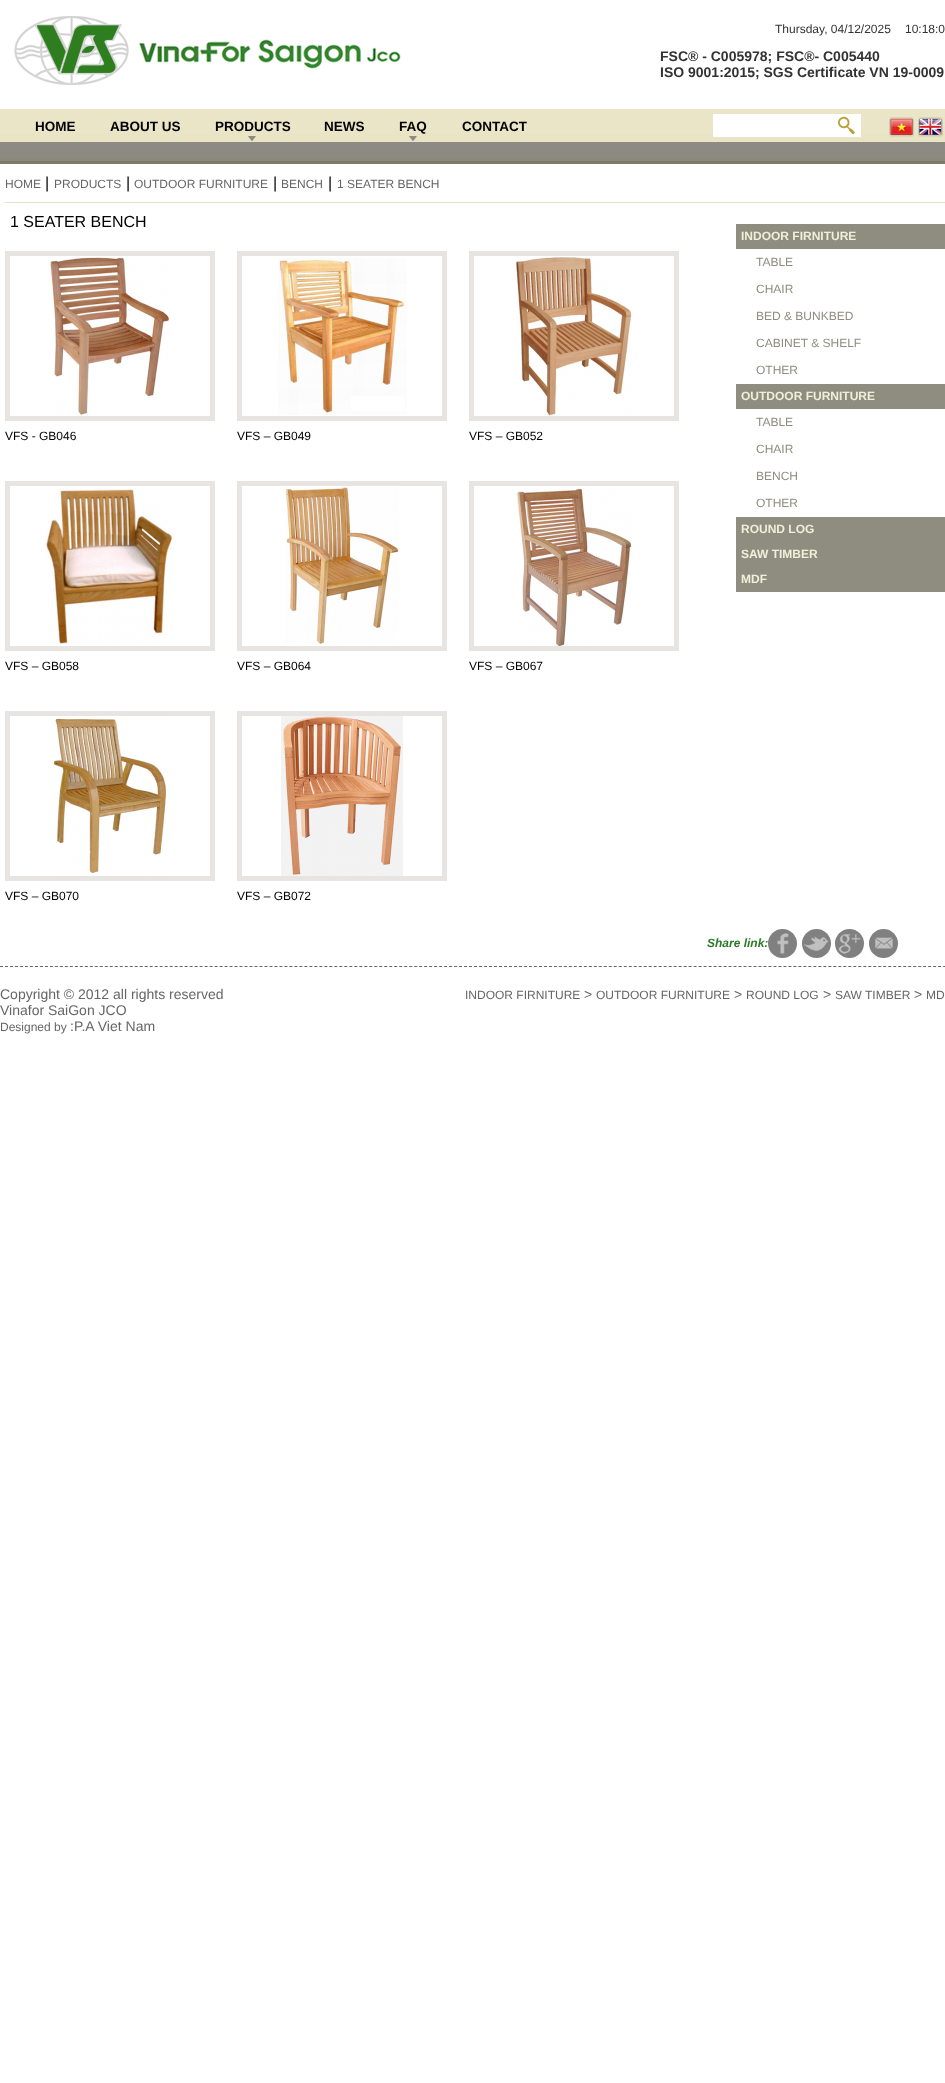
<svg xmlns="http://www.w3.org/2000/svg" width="945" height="2083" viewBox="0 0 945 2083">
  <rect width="100%" height="100%" fill="#ffffff"/>
  <image x="14" y="16" width="387" height="69" href="img1.png"/>
  <text x="775" y="33" font-family="Liberation Sans" font-size="12" fill="#333333">Thursday, 04/12/2025</text>
  <text x="905" y="33" font-family="Liberation Sans" font-size="12" fill="#333333">10:18:0</text>
  <text x="660" y="61" font-family="Liberation Sans" font-size="14" font-weight="bold" fill="#333333">FSC® - C005978; FSC®- C005440</text>
  <text x="660" y="77" font-family="Liberation Sans" font-size="14" font-weight="bold" fill="#333333">ISO 9001:2015; SGS Certificate VN 19-0009</text>
  <image x="0" y="109" width="945" height="55" href="img2.png"/>
  <text x="35" y="131" font-family="Liberation Sans" font-size="13.5" font-weight="bold" fill="#000000">HOME</text>
  <text x="110" y="131" font-family="Liberation Sans" font-size="13.5" font-weight="bold" fill="#000000">ABOUT US</text>
  <image x="248" y="136" width="8" height="5" href="img3.png"/>
  <text x="215" y="131" font-family="Liberation Sans" font-size="13.5" font-weight="bold" fill="#000000">PRODUCTS</text>
  <text x="324" y="131" font-family="Liberation Sans" font-size="13.5" font-weight="bold" fill="#000000">NEWS</text>
  <image x="409" y="136" width="8" height="5" href="img4.png"/>
  <text x="399" y="131" font-family="Liberation Sans" font-size="13.5" font-weight="bold" fill="#000000">FAQ</text>
  <text x="462" y="131" font-family="Liberation Sans" font-size="13.5" font-weight="bold" fill="#000000">CONTACT</text>
  <image x="713" y="114" width="148" height="23" href="img5.png"/>
  <image x="889" y="117" width="25" height="20" href="img6.png"/>
  <image x="918" y="117" width="25" height="20" href="img7.png"/>
  <rect x="5" y="202" width="940" height="1" fill="#e9e0cc"/>
  <text x="5" y="188" font-family="Liberation Sans" font-size="12" fill="#666666">HOME</text>
  <text x="45" y="188" font-family="Liberation Sans" font-size="16" fill="#000000">|</text>
  <text x="54" y="188" font-family="Liberation Sans" font-size="12" fill="#666666">PRODUCTS</text>
  <text x="126" y="188" font-family="Liberation Sans" font-size="16" fill="#000000">|</text>
  <text x="134" y="188" font-family="Liberation Sans" font-size="12" fill="#666666">OUTDOOR FURNITURE</text>
  <text x="273" y="188" font-family="Liberation Sans" font-size="16" fill="#000000">|</text>
  <text x="281" y="188" font-family="Liberation Sans" font-size="12" fill="#666666">BENCH</text>
  <text x="328" y="188" font-family="Liberation Sans" font-size="16" fill="#000000">|</text>
  <text x="337" y="188" font-family="Liberation Sans" font-size="12" fill="#666666">1 SEATER BENCH</text>
  <text x="10" y="227" font-family="Liberation Sans" font-size="16" fill="#000000">1 SEATER BENCH</text>
  <rect x="7.5" y="253.5" width="205" height="165" fill="none" stroke="#e8e4e1" stroke-width="5"/>
  <image x="50" y="257" width="120" height="158" href="img8.png"/>
  <text x="5" y="440" font-family="Liberation Sans" font-size="12" fill="#000000">VFS - GB046</text>
  <rect x="239.5" y="253.5" width="205" height="165" fill="none" stroke="#e8e4e1" stroke-width="5"/>
  <image x="278" y="257" width="129" height="158" href="img9.png"/>
  <text x="237" y="440" font-family="Liberation Sans" font-size="12" fill="#000000">VFS – GB049</text>
  <rect x="471.5" y="253.5" width="205" height="165" fill="none" stroke="#e8e4e1" stroke-width="5"/>
  <image x="516" y="257" width="116" height="159" href="img10.png"/>
  <text x="469" y="440" font-family="Liberation Sans" font-size="12" fill="#000000">VFS – GB052</text>
  <rect x="7.5" y="483.5" width="205" height="165" fill="none" stroke="#e8e4e1" stroke-width="5"/>
  <image x="45" y="489" width="130" height="155" href="img11.png"/>
  <text x="5" y="670" font-family="Liberation Sans" font-size="12" fill="#000000">VFS – GB058</text>
  <rect x="239.5" y="483.5" width="205" height="165" fill="none" stroke="#e8e4e1" stroke-width="5"/>
  <image x="285" y="487" width="114" height="157" href="img12.png"/>
  <text x="237" y="670" font-family="Liberation Sans" font-size="12" fill="#000000">VFS – GB064</text>
  <rect x="471.5" y="483.5" width="205" height="165" fill="none" stroke="#e8e4e1" stroke-width="5"/>
  <image x="517" y="488" width="115" height="158" href="img13.png"/>
  <text x="469" y="670" font-family="Liberation Sans" font-size="12" fill="#000000">VFS – GB067</text>
  <rect x="7.5" y="713.5" width="205" height="165" fill="none" stroke="#e8e4e1" stroke-width="5"/>
  <image x="53" y="718" width="114" height="155" href="img14.png"/>
  <text x="5" y="900" font-family="Liberation Sans" font-size="12" fill="#000000">VFS – GB070</text>
  <rect x="239.5" y="713.5" width="205" height="165" fill="none" stroke="#e8e4e1" stroke-width="5"/>
  <image x="281" y="716" width="122" height="160" href="img15.png"/>
  <text x="237" y="900" font-family="Liberation Sans" font-size="12" fill="#000000">VFS – GB072</text>
  <rect x="736" y="224" width="209" height="25" fill="#8e8d7f"/>
  <text x="741" y="240" font-family="Liberation Sans" font-size="12" font-weight="bold" fill="#f1eeda">INDOOR FIRNITURE</text>
  <text x="756" y="266" font-family="Liberation Sans" font-size="12" fill="#8e8d7f">TABLE</text>
  <text x="756" y="293" font-family="Liberation Sans" font-size="12" fill="#8e8d7f">CHAIR</text>
  <text x="756" y="320" font-family="Liberation Sans" font-size="12" fill="#8e8d7f">BED &amp; BUNKBED</text>
  <text x="756" y="347" font-family="Liberation Sans" font-size="12" fill="#8e8d7f">CABINET &amp; SHELF</text>
  <text x="756" y="374" font-family="Liberation Sans" font-size="12" fill="#8e8d7f">OTHER</text>
  <rect x="736" y="384" width="209" height="25" fill="#8e8d7f"/>
  <text x="741" y="400" font-family="Liberation Sans" font-size="12" font-weight="bold" fill="#f1eeda">OUTDOOR FURNITURE</text>
  <text x="756" y="426" font-family="Liberation Sans" font-size="12" fill="#8e8d7f">TABLE</text>
  <text x="756" y="453" font-family="Liberation Sans" font-size="12" fill="#8e8d7f">CHAIR</text>
  <text x="756" y="480" font-family="Liberation Sans" font-size="12" fill="#8e8d7f">BENCH</text>
  <text x="756" y="507" font-family="Liberation Sans" font-size="12" fill="#8e8d7f">OTHER</text>
  <rect x="736" y="517" width="209" height="75" fill="#8e8d7f"/>
  <text x="741" y="533" font-family="Liberation Sans" font-size="12" font-weight="bold" fill="#f1eeda">ROUND LOG</text>
  <text x="741" y="558" font-family="Liberation Sans" font-size="12" font-weight="bold" fill="#f1eeda">SAW TIMBER</text>
  <text x="741" y="583" font-family="Liberation Sans" font-size="12" font-weight="bold" fill="#f1eeda">MDF</text>
  <text x="707" y="947" font-family="Liberation Sans" font-size="12" font-weight="bold" font-style="italic" fill="#2d7a28">Share link:</text>
  <circle cx="782.5" cy="943.5" r="14.5" fill="#808080"/>
  <circle cx="816.5" cy="943.5" r="14.5" fill="#808080"/>
  <circle cx="849.5" cy="943.5" r="14.5" fill="#808080"/>
  <circle cx="883.5" cy="943.5" r="14.5" fill="#808080"/>
  <image x="777" y="933" width="12" height="21" href="img16.png"/>
  <image x="804" y="936" width="25" height="15" href="img17.png"/>
  <image x="838" y="934" width="23" height="20" href="img18.png"/>
  <image x="875" y="937" width="18" height="12" href="img19.png"/>
  <path d="M0 966.5H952" fill="none" stroke="#666666" stroke-dasharray="3 1.99"/>
  <text x="0" y="999" font-family="Liberation Sans" font-size="14" fill="#666666">Copyright © 2012 all rights reserved</text>
  <text x="0" y="1015" font-family="Liberation Sans" font-size="14" fill="#666666">Vinafor SaiGon JCO</text>
  <text x="0" y="1031" font-family="Liberation Sans" font-size="12" fill="#666666">Designed by</text>
  <text x="70" y="1031" font-family="Liberation Sans" font-size="14" fill="#666666">:P.A Viet Nam</text>
  <text x="465" y="999" font-family="Liberation Sans" font-size="12" fill="#666666">INDOOR FIRNITURE</text>
  <text x="584" y="999" font-family="Liberation Sans" font-size="14" fill="#666666">&gt;</text>
  <text x="596" y="999" font-family="Liberation Sans" font-size="12" fill="#666666">OUTDOOR FURNITURE</text>
  <text x="734" y="999" font-family="Liberation Sans" font-size="14" fill="#666666">&gt;</text>
  <text x="746" y="999" font-family="Liberation Sans" font-size="12" fill="#666666">ROUND LOG</text>
  <text x="823" y="999" font-family="Liberation Sans" font-size="14" fill="#666666">&gt;</text>
  <text x="835" y="999" font-family="Liberation Sans" font-size="12" fill="#666666">SAW TIMBER</text>
  <text x="914" y="999" font-family="Liberation Sans" font-size="14" fill="#666666">&gt;</text>
  <text x="926" y="999" font-family="Liberation Sans" font-size="12" fill="#666666">MD</text>
</svg>
